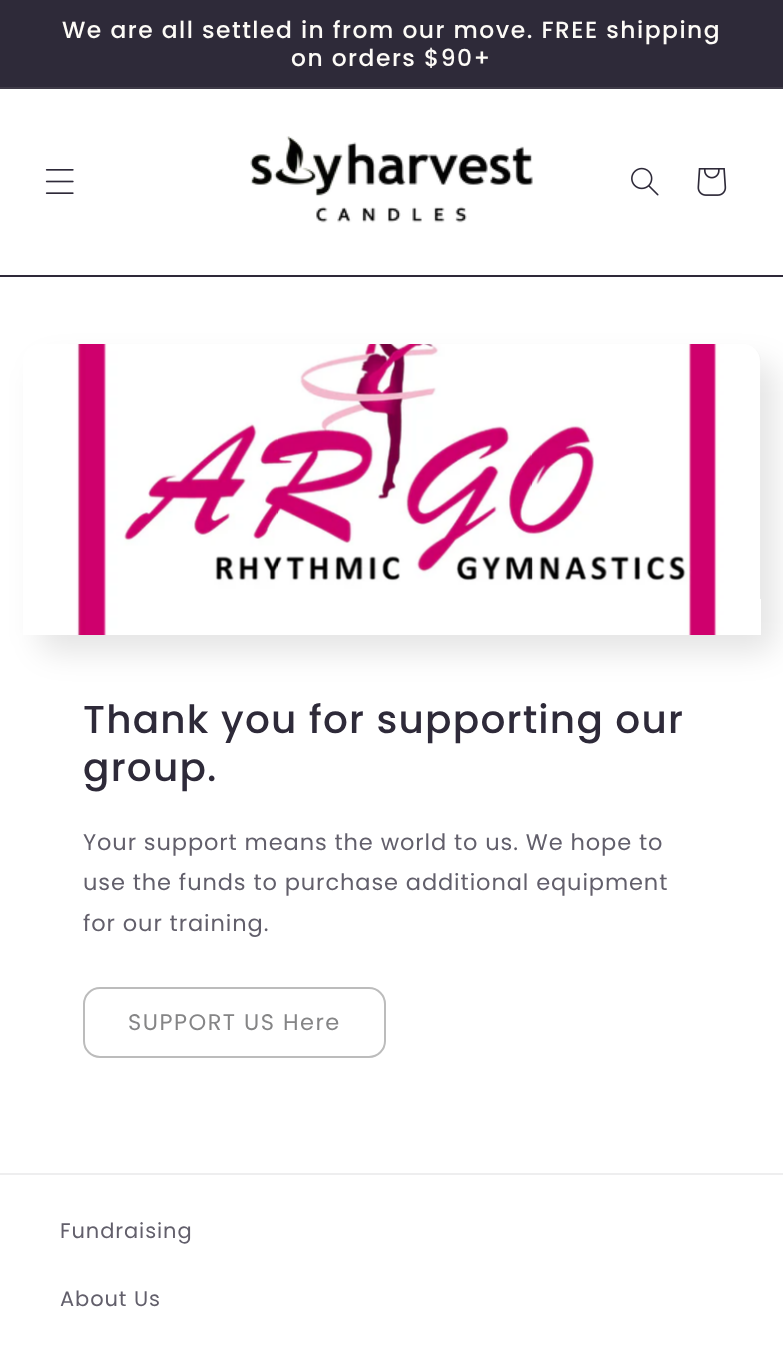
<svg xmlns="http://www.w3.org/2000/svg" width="783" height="1346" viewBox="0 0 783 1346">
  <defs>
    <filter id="blur1" x="-50%" y="-200%" width="200%" height="500%"><feGaussianBlur stdDeviation="15"/></filter>
    <clipPath id="clip1"><path d="M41 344H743C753 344 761 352 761 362V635H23V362C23 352 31 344 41 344Z"/></clipPath>
  </defs>
  <rect width="100%" height="100%" fill="#ffffff"/>
  <rect x="0" y="0" width="783" height="87" fill="#2e2a39"/>
  <rect x="0" y="87" width="783" height="2" fill="#3f3b48"/>
  <text x="62" y="38" font-family="Poppins" font-size="23.4" font-weight="500" letter-spacing="1.5" fill="#fdfbf7">We are all settled in from our move. FREE shipping</text>
  <text x="291" y="66" font-family="Poppins" font-size="23.4" font-weight="500" letter-spacing="1.5" fill="#fdfbf7">on orders $90+</text>
  <rect x="0" y="275" width="783" height="2" fill="#2e2939"/>
  <image x="45" y="169" width="29" height="25" href="img1.png"/>
  <image x="250" y="136" width="283" height="87" href="img2.png"/>
  <image x="631" y="167" width="28" height="29" href="img3.png"/>
  <image x="697" y="168" width="30" height="28" href="img4.png"/>
  <rect x="38" y="362" width="738" height="291" rx="18" fill="#0b0b0c" fill-opacity="0.1" filter="url(#blur1)"/>
  <g clip-path="url(#clip1)">
    <rect x="38" y="362" width="738" height="291" rx="18" fill="#0b0b0c" fill-opacity="0.1" filter="url(#blur1)"/>
  </g>
  <image x="23" y="344" width="738" height="291" href="img5.png"/>
  <text x="83" y="733" font-family="Poppins" font-size="39" font-weight="500" letter-spacing="1.2" fill="#2e2a39">Thank you for supporting our</text>
  <text x="83" y="781" font-family="Poppins" font-size="39" font-weight="500" letter-spacing="1.2" fill="#2e2a39">group.</text>
  <text x="83" y="850" font-family="Poppins" font-size="22.5" letter-spacing="0.9" fill="#625f6b">Your support means the world to us. We hope to</text>
  <text x="83" y="890" font-family="Poppins" font-size="22.5" letter-spacing="0.9" fill="#625f6b">use the funds to purchase additional equipment</text>
  <text x="83" y="931" font-family="Poppins" font-size="22.5" letter-spacing="0.9" fill="#625f6b">for our training.</text>
  <rect x="84" y="988" width="301" height="69" rx="16" fill="none" stroke="#bcbcbc" stroke-width="2"/>
  <text x="128" y="1030" font-family="Poppins" font-size="22.5" letter-spacing="1.5" fill="#858586">SUPPORT US Here</text>
  <rect x="0" y="1173" width="783" height="2" fill="#eeeeef"/>
  <text x="60" y="1238" font-family="Poppins" font-size="21" letter-spacing="0.9" fill="#625f6b">Fundraising</text>
  <text x="60" y="1306" font-family="Poppins" font-size="21" letter-spacing="0.9" fill="#625f6b">About Us</text>
</svg>
